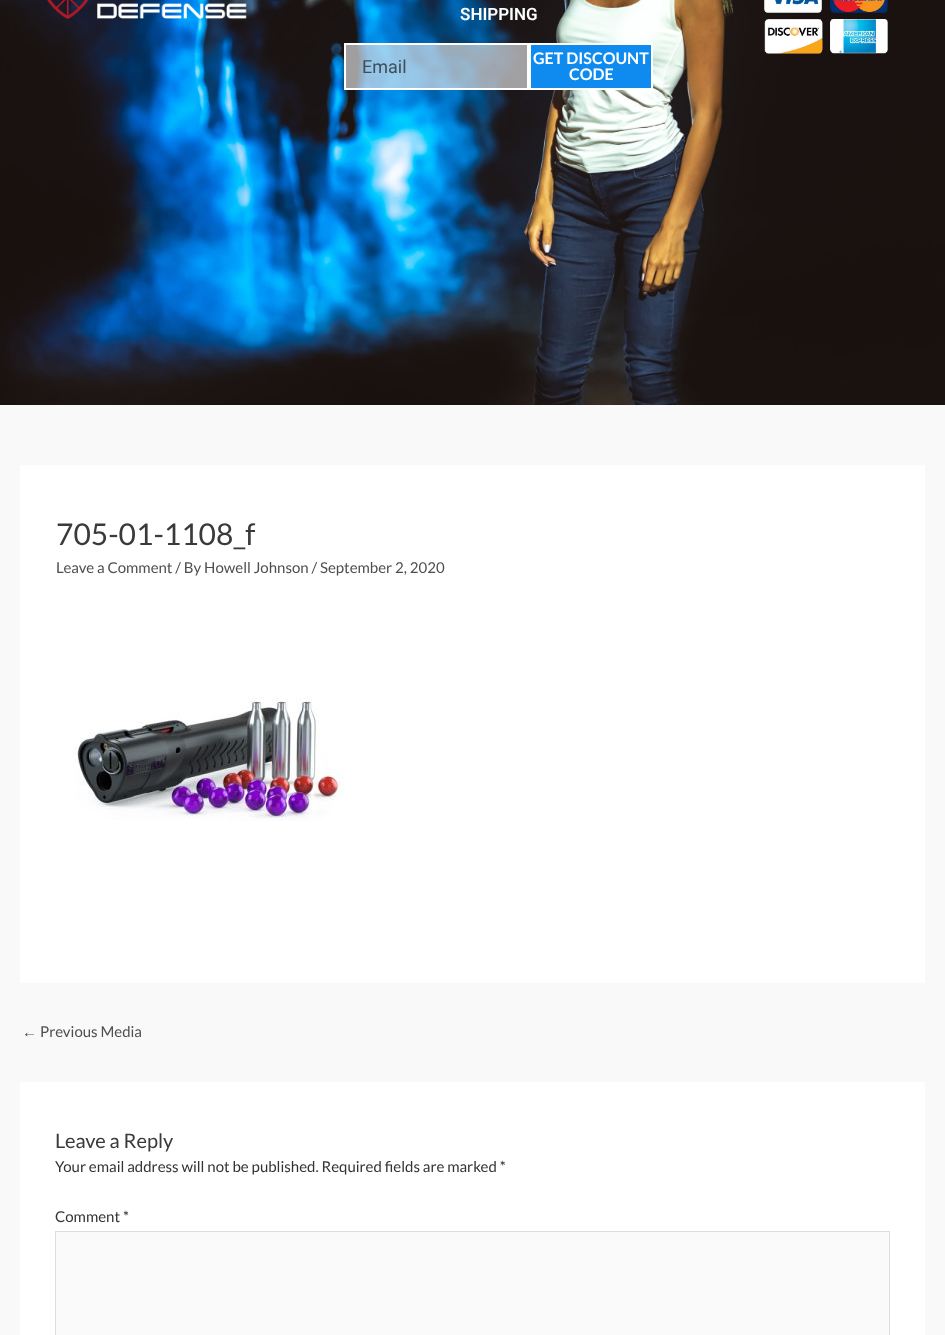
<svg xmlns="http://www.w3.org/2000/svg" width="945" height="1335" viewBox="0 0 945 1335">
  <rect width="100%" height="100%" fill="#f9f9f9"/>
  <image x="0" y="0" width="945" height="405" href="img1.png"/>
  <image x="47" y="0" width="200" height="19" href="img2.png"/>
  <text x="460" y="20" font-family="Roboto" font-size="17" font-weight="600" fill="#ffffff">SHIPPING</text>
  <rect x="345" y="44" width="183" height="45" fill="#efefef" fill-opacity="0.63" stroke="#ffffff" stroke-width="2"/>
  <text x="362" y="73" font-family="Roboto" font-size="18" fill="#3c4e5b">Email</text>
  <rect x="530" y="44" width="122" height="45" fill="#0f8bef" stroke="#ffffff" stroke-width="2"/>
  <text x="533" y="64" font-family="Lato" font-size="16" font-weight="bold" fill="#ffffff">GET DISCOUNT</text>
  <text x="569" y="80" font-family="Lato" font-size="16" font-weight="bold" fill="#ffffff">CODE</text>
  <image x="764" y="0" width="124" height="54" href="img3.png"/>
  <rect x="20" y="465" width="905" height="518" fill="#ffffff"/>
  <text x="56" y="545" font-family="Lato" font-size="30" fill="#3a3a3a">705-01-1108_f</text>
  <text x="56" y="573" font-family="Lato" font-size="15" fill="#4e4e4e">Leave a Comment / By Howell Johnson / September 2, 2020</text>
  <image x="73" y="697" width="271" height="124" href="img4.png"/>
  <text x="22" y="1037" font-family="Liberation Sans" font-size="15" fill="#4e4e4e">←</text>
  <text x="40" y="1037" font-family="Lato" font-size="15" fill="#4e4e4e">Previous Media</text>
  <rect x="20" y="1082" width="905" height="253" fill="#ffffff"/>
  <text x="55" y="1148" font-family="Lato" font-size="20" fill="#3a3a3a">Leave a Reply</text>
  <text x="55" y="1172" font-family="Lato" font-size="15" fill="#333333">Your email address will not be published. Required fields are marked *</text>
  <text x="55" y="1222" font-family="Lato" font-size="15" fill="#333333">Comment *</text>
  <rect x="55.5" y="1231.5" width="834" height="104" fill="#fafafa" stroke="#dddddd"/>
</svg>
